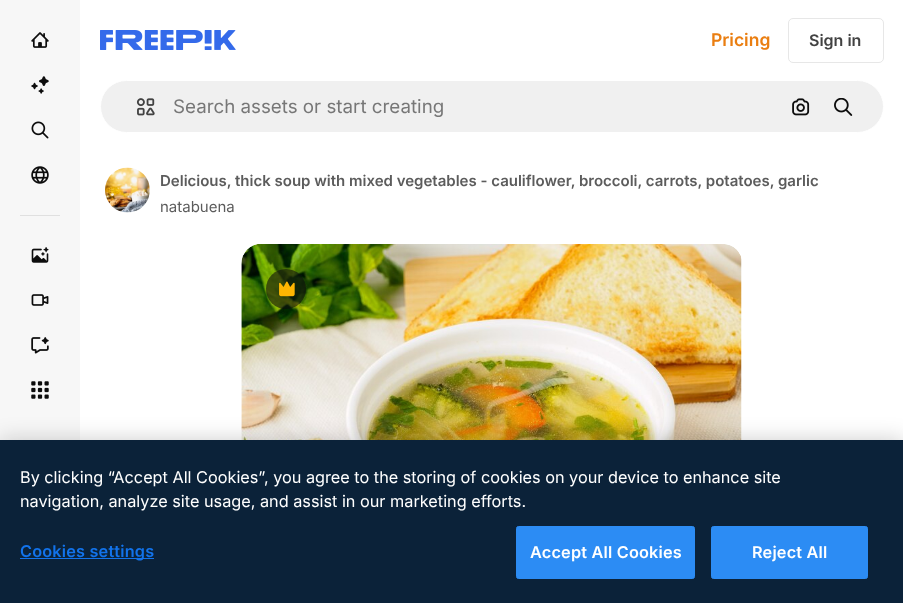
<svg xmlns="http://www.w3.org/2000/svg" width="903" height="603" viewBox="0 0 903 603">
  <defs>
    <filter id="blur1" x="-50%" y="-200%" width="200%" height="500%"><feGaussianBlur stdDeviation="11"/></filter>
  </defs>
  <rect width="100%" height="100%" fill="#ffffff"/>
  <rect x="0" y="0" width="80" height="440" fill="#f7f7f7"/>
  <image x="31" y="32" width="18" height="16" href="img1.png"/>
  <image x="31" y="76" width="18" height="18" href="img2.png"/>
  <image x="31" y="121" width="18" height="18" href="img3.png"/>
  <image x="31" y="166" width="18" height="18" href="img4.png"/>
  <rect x="20" y="215" width="40" height="1" fill="#e0e0e0"/>
  <image x="31" y="247" width="18" height="16" href="img5.png"/>
  <image x="31" y="294" width="18" height="12" href="img6.png"/>
  <image x="31" y="337" width="18" height="17" href="img7.png"/>
  <image x="31" y="381" width="18" height="18" href="img8.png"/>
  <image x="100" y="30" width="136" height="20" href="img9.png"/>
  <text x="711" y="46" font-family="Inter" font-size="17.5" font-weight="600" fill="#ea7e11">Pricing</text>
  <rect x="788.5" y="18.5" width="95" height="44" rx="4.5" fill="none" stroke="#e7e7e7"/>
  <text x="809" y="46" font-family="Inter" font-size="16" font-weight="600" fill="#424242">Sign in</text>
  <rect x="100.5" y="80.5" width="783" height="52" rx="26" fill="#f0f0f0" stroke="#ffffff"/>
  <image x="136" y="98" width="19" height="18" href="img10.png"/>
  <text x="173" y="113" font-family="Inter" font-size="18.75" fill="#777777">Search assets or start creating</text>
  <image x="792" y="98" width="18" height="18" href="img11.png"/>
  <image x="834" y="98" width="19" height="18" href="img12.png"/>
  <image x="105" y="167" width="45" height="46" href="img13.png"/>
  <text x="160" y="186" font-family="Inter" font-size="15" font-weight="600" fill="#5c5c5c">Delicious, thick soup with mixed vegetables - cauliflower, broccoli, carrots, potatoes, garlic</text>
  <text x="160" y="212" font-family="Inter" font-size="15" fill="#5c5c5c">natabuena</text>
  <image x="241" y="244" width="501" height="196" href="img14.png"/>
  <circle cx="286" cy="289" r="20" fill="#0d0d0d" fill-opacity="0.6"/>
  <image x="279" y="281" width="16" height="16" href="img15.png"/>
  <rect x="0" y="440" width="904" height="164" fill="#000000" fill-opacity="0.2" filter="url(#blur1)"/>
  <rect x="0" y="440" width="903" height="163" fill="#0b2239"/>
  <text x="20" y="483" font-family="Inter" font-size="16.25" fill="#ffffff">By clicking “Accept All Cookies”, you agree to the storing of cookies on your device to enhance site</text>
  <text x="20" y="507" font-family="Inter" font-size="16.25" fill="#ffffff">navigation, analyze site usage, and assist in our marketing efforts.</text>
  <rect x="20" y="558" width="134" height="1" fill="#1273eb"/>
  <text x="20" y="557" font-family="Inter" font-size="16.25" font-weight="600" letter-spacing="0.2" fill="#1273eb">Cookies settings</text>
  <rect x="516.5" y="526.5" width="178" height="52" rx="2" fill="#2c8cf4" stroke="#2c8cf4"/>
  <text x="530" y="558" font-family="Inter" font-size="16.25" font-weight="600" letter-spacing="0.2" fill="#ffffff">Accept All Cookies</text>
  <rect x="711.5" y="526.5" width="156" height="52" rx="2" fill="#2c8cf4" stroke="#2c8cf4"/>
  <text x="752" y="558" font-family="Inter" font-size="16.25" font-weight="600" letter-spacing="0.2" fill="#ffffff">Reject All</text>
</svg>
